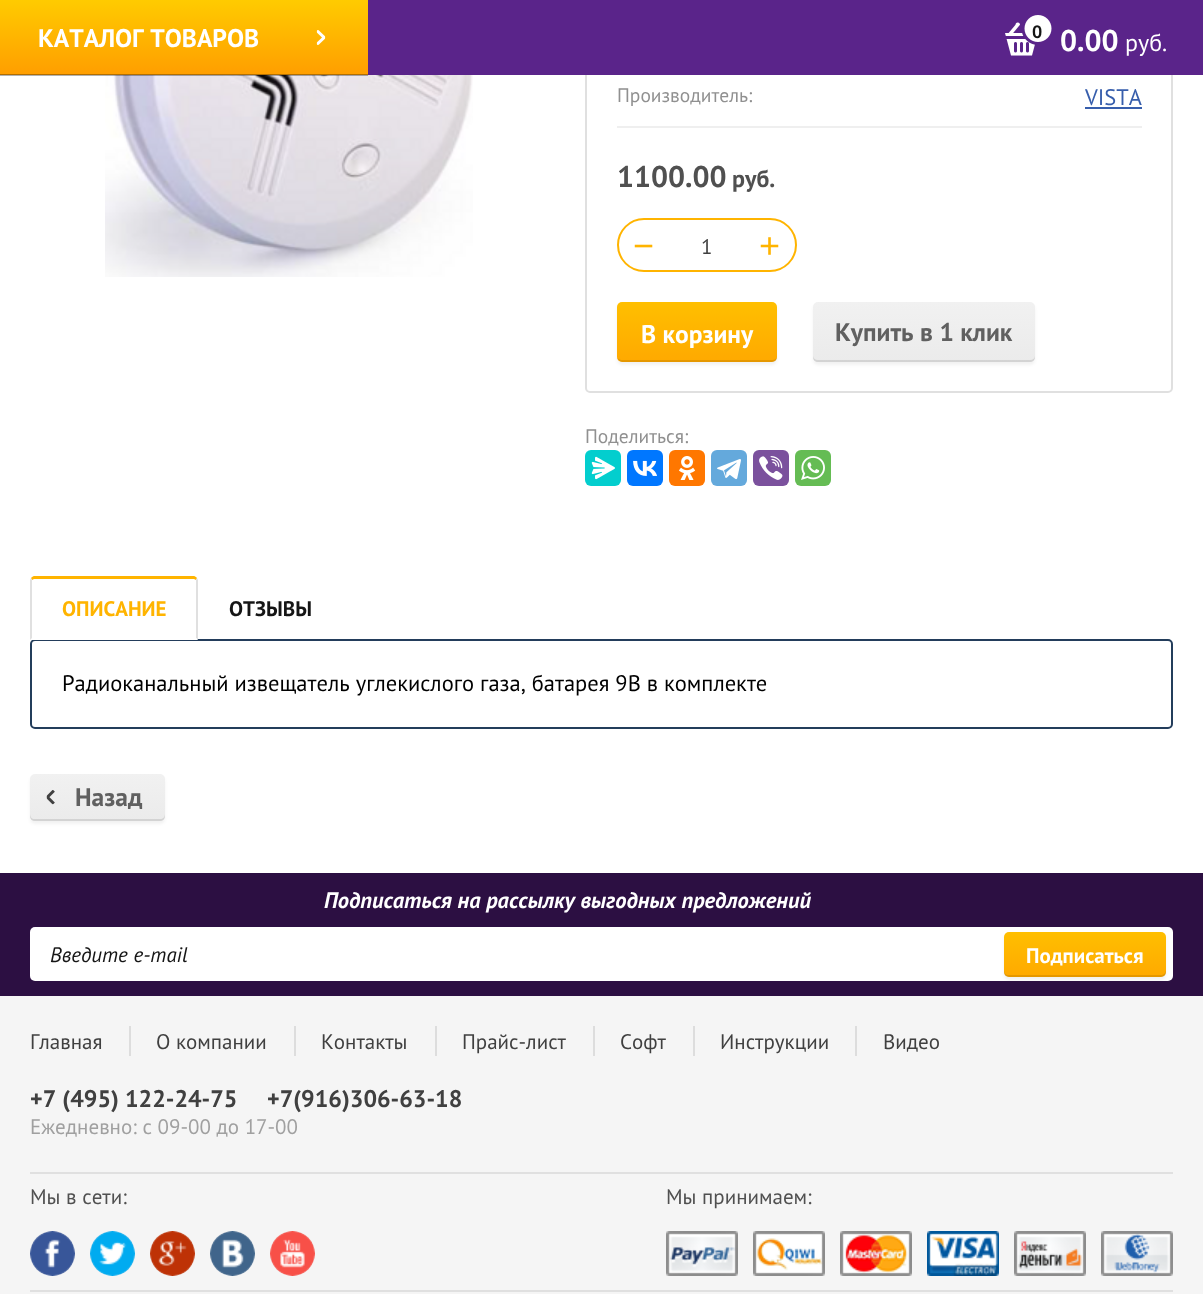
<svg xmlns="http://www.w3.org/2000/svg" width="1203" height="1294" viewBox="0 0 1203 1294">
  <defs>
    <linearGradient id="g1" gradientUnits="userSpaceOnUse" x1="184" y1="75" x2="184" y2="0"><stop offset="0" stop-color="#ff9e00"/><stop offset="1" stop-color="#ffcb00"/></linearGradient>
    <filter id="blur1" x="-50%" y="-200%" width="200%" height="500%"><feGaussianBlur stdDeviation="1.5"/></filter>
    <linearGradient id="g2" gradientUnits="userSpaceOnUse" x1="697" y1="362" x2="697" y2="302"><stop offset="0" stop-color="#ffa900"/><stop offset="1" stop-color="#ffbf00"/></linearGradient>
    <linearGradient id="g3" gradientUnits="userSpaceOnUse" x1="924" y1="362" x2="924" y2="302"><stop offset="0" stop-color="#ebebeb"/><stop offset="1" stop-color="#f1f1f1"/></linearGradient>
    <linearGradient id="g4" gradientUnits="userSpaceOnUse" x1="98" y1="821" x2="98" y2="774"><stop offset="0" stop-color="#ebebeb"/><stop offset="1" stop-color="#f1f1f1"/></linearGradient>
    <linearGradient id="g5" gradientUnits="userSpaceOnUse" x1="1085" y1="977" x2="1085" y2="932"><stop offset="0" stop-color="#ffa900"/><stop offset="1" stop-color="#ffbf00"/></linearGradient>
  </defs>
  <rect width="100%" height="100%" fill="#ffffff"/>
  <rect x="586" y="-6" width="586" height="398" rx="4" fill="none" stroke="#e0e0e0" stroke-width="2"/>
  <rect x="368" y="0" width="835" height="75" fill="#5a248a"/>
  <rect x="0" y="0" width="368" height="75" fill="url(#g1)"/>
  <image x="105" y="75" width="368" height="202" href="img3.png"/>
  <rect x="0" y="74" width="368" height="2" fill="#000000" fill-opacity="0.3"/>
  <text x="38" y="47" font-family="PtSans" font-size="25.5" font-weight="bold" fill="#ffffff">КАТАЛОГ ТОВАРОВ</text>
  <image x="316" y="30" width="10" height="15" href="img1.png"/>
  <image x="1005" y="15" width="47" height="41" href="img2.png"/>
  <text x="1032" y="38" font-family="PtSans" font-size="18" font-weight="bold" fill="#151515">0</text>
  <text x="1060" y="51" font-family="PtSans" font-size="30" font-weight="bold" fill="#ffffff">0.00</text>
  <text x="1125" y="51" font-family="PtSans" font-size="24" fill="#ffffff">руб.</text>
  <rect x="617" y="126" width="525" height="2" fill="#efefef"/>
  <text x="617" y="102" font-family="PtSans" font-size="19.5" fill="#909090">Производитель:</text>
  <text x="1085" y="105" font-family="PtSans" font-size="22.5" fill="#375eac">VISTA</text>
  <rect x="1085" y="107" width="57" height="2" fill="#375eac"/>
  <text x="617" y="187" font-family="PtSans" font-size="30" font-weight="bold" fill="#505050">1100.00</text>
  <text x="732" y="187" font-family="PtSans" font-size="24" font-weight="bold" fill="#505050">руб.</text>
  <rect x="618" y="219" width="178" height="52" rx="26" fill="none" stroke="#ffb400" stroke-width="2"/>
  <text x="633" y="258" font-family="Liberation Sans" font-size="36" fill="#ffb400">−</text>
  <text x="701" y="254" font-family="PtSans" font-size="21" fill="#404040">1</text>
  <text x="759" y="258" font-family="Liberation Sans" font-size="36" fill="#ffb400">+</text>
  <rect x="617" y="305" width="160" height="60" rx="5" fill="#000000" fill-opacity="0.05" filter="url(#blur1)"/>
  <rect x="617" y="302" width="160" height="60" rx="5" fill="url(#g2)"/>
  <path d="M617 358C618 360 620 362 622 362H772C775 362 777 360 777 357V356C777 359 774 360 772 360H621Z" fill="#000000" fill-opacity="0.1"/>
  <text x="641" y="343" font-family="PtSans" font-size="25.5" font-weight="bold" fill="#ffffff">В корзину</text>
  <rect x="813" y="305" width="222" height="60" rx="5" fill="#000000" fill-opacity="0.05" filter="url(#blur1)"/>
  <rect x="813" y="302" width="222" height="60" rx="5" fill="url(#g3)"/>
  <path d="M813 356V357C813 360 815 362 818 362H1030C1033 362 1035 360 1035 357V356C1035 358 1033 360 1030 360H818C815 360 813 358 813 356Z" fill="#000000" fill-opacity="0.1"/>
  <text x="835" y="341" font-family="PtSans" font-size="25.5" font-weight="bold" fill="#606060">Купить в 1 клик</text>
  <text x="585" y="443" font-family="PtSans" font-size="19.5" fill="#909090">Поделиться:</text>
  <rect x="585" y="450" width="36" height="36" rx="6" fill="#03cece"/>
  <image x="591" y="456" width="24" height="24" href="img4.png"/>
  <rect x="627" y="450" width="36" height="36" rx="6" fill="#0077ff"/>
  <image x="633" y="460" width="24" height="16" href="img5.png"/>
  <rect x="669" y="450" width="36" height="36" rx="6" fill="#ff7700"/>
  <image x="679" y="456" width="17" height="24" href="img6.png"/>
  <rect x="711" y="450" width="36" height="36" rx="6" fill="#64a9dc"/>
  <image x="717" y="459" width="24" height="21" href="img7.png"/>
  <rect x="753" y="450" width="36" height="36" rx="6" fill="#7b519d"/>
  <image x="759" y="456" width="24" height="24" href="img8.png"/>
  <rect x="795" y="450" width="36" height="36" rx="6" fill="#65bc54"/>
  <image x="801" y="456" width="24" height="24" href="img9.png"/>
  <path d="M34 576C33 576 32 577 31 578L32 580L34 579H194L196 580L197 578C196 577 195 576 194 576Z" fill="#ffb400"/>
  <rect x="31" y="640" width="1141" height="88" rx="4" fill="none" stroke="#233d5b" stroke-width="2"/>
  <path d="M198 640V580L197 578L196 580V638Z" fill="#e0e0e0"/>
  <path d="M198 640H30L32 638V639H196V638Z" fill="#ffffff"/>
  <path d="M30 580V640L32 638V580L31 578Z" fill="#e0e0e0"/>
  <text x="62" y="616" font-family="PtSans" font-size="21" font-weight="bold" fill="#ffb400">ОПИСАНИЕ</text>
  <text x="229" y="616" font-family="PtSans" font-size="21" font-weight="bold" fill="#151515">ОТЗЫВЫ</text>
  <text x="62" y="691" font-family="PtSans" font-size="22.5" fill="#000000">Радиоканальный извещатель углекислого газа, батарея 9В в комплекте</text>
  <rect x="30" y="777" width="135" height="47" rx="5" fill="#000000" fill-opacity="0.05" filter="url(#blur1)"/>
  <rect x="30" y="774" width="135" height="47" rx="5" fill="url(#g4)"/>
  <path d="M30 814V816C30 819 32 821 35 821H160C163 821 165 819 165 816V814C165 817 163 819 160 819H34C32 819 30 817 30 814Z" fill="#000000" fill-opacity="0.1"/>
  <image x="46" y="790" width="9" height="15" href="img10.png"/>
  <text x="75" y="806" font-family="PtSans" font-size="25.5" font-weight="bold" fill="#606060">Назад</text>
  <rect x="0" y="996" width="1203" height="298" fill="#f5f5f5"/>
  <rect x="0" y="873" width="1203" height="123" fill="#2c0f42"/>
  <text x="324" y="908" font-family="PtSans" font-size="22.5" font-weight="bold" font-style="italic" fill="#ffffff">Подписаться на рассылку выгодных предложений</text>
  <rect x="30" y="927" width="1143" height="54" rx="5" fill="#ffffff"/>
  <text x="50" y="962" font-family="PtSans" font-size="21" font-style="italic" fill="#151515">Введите e-mail</text>
  <rect x="1004" y="935" width="162" height="45" rx="5" fill="#000000" fill-opacity="0.05" filter="url(#blur1)"/>
  <rect x="1004" y="932" width="162" height="45" rx="5" fill="url(#g5)"/>
  <path d="M1004 970V972C1004 975 1006 977 1009 977H1161C1164 977 1166 975 1166 972V970C1166 973 1163 975 1161 975H1008C1006 975 1004 973 1004 970Z" fill="#000000" fill-opacity="0.1"/>
  <text x="1026" y="963" font-family="PtSans" font-size="21" font-weight="bold" fill="#ffffff">Подписаться</text>
  <rect x="30" y="1172" width="1143" height="2" fill="#e0e0e0"/>
  <text x="30" y="1049" font-family="PtSans" font-size="21" fill="#404040">Главная</text>
  <rect x="129" y="1026" width="2" height="30" fill="#dddddd"/>
  <text x="156" y="1049" font-family="PtSans" font-size="21" fill="#404040">О компании</text>
  <rect x="294" y="1026" width="2" height="30" fill="#dddddd"/>
  <text x="321" y="1049" font-family="PtSans" font-size="21" fill="#404040">Контакты</text>
  <rect x="435" y="1026" width="2" height="30" fill="#dddddd"/>
  <text x="462" y="1049" font-family="PtSans" font-size="21" fill="#404040">Прайс-лист</text>
  <rect x="593" y="1026" width="2" height="30" fill="#dddddd"/>
  <text x="620" y="1049" font-family="PtSans" font-size="21" fill="#404040">Софт</text>
  <rect x="693" y="1026" width="2" height="30" fill="#dddddd"/>
  <text x="720" y="1049" font-family="PtSans" font-size="21" fill="#404040">Инструкции</text>
  <rect x="855" y="1026" width="2" height="30" fill="#dddddd"/>
  <text x="883" y="1049" font-family="PtSans" font-size="21" fill="#404040">Видео</text>
  <text x="30" y="1107" font-family="PtSans" font-size="24" font-weight="bold" fill="#404040">+7 (495) 122-24-75</text>
  <text x="267" y="1107" font-family="PtSans" font-size="24" font-weight="bold" fill="#404040">+7(916)306-63-18</text>
  <text x="30" y="1134" font-family="PtSans" font-size="21" fill="#a0a0a0">Ежедневно: с 09-00 до 17-00</text>
  <rect x="30" y="1290" width="1143" height="2" fill="#e0e0e0"/>
  <text x="30" y="1204" font-family="PtSans" font-size="21" fill="#505050">Мы в сети:</text>
  <image x="30" y="1231" width="45" height="45" href="img11.png"/>
  <image x="90" y="1231" width="45" height="45" href="img12.png"/>
  <image x="150" y="1231" width="45" height="45" href="img13.png"/>
  <image x="210" y="1231" width="45" height="45" href="img14.png"/>
  <image x="270" y="1231" width="45" height="45" href="img15.png"/>
  <text x="666" y="1204" font-family="PtSans" font-size="21" fill="#505050">Мы принимаем:</text>
  <image x="666" y="1231" width="72" height="45" href="img16.png"/>
  <image x="753" y="1231" width="72" height="45" href="img17.png"/>
  <image x="840" y="1231" width="72" height="45" href="img18.png"/>
  <image x="927" y="1231" width="72" height="45" href="img19.png"/>
  <image x="1014" y="1231" width="72" height="45" href="img20.png"/>
  <image x="1101" y="1231" width="72" height="45" href="img21.png"/>
</svg>
